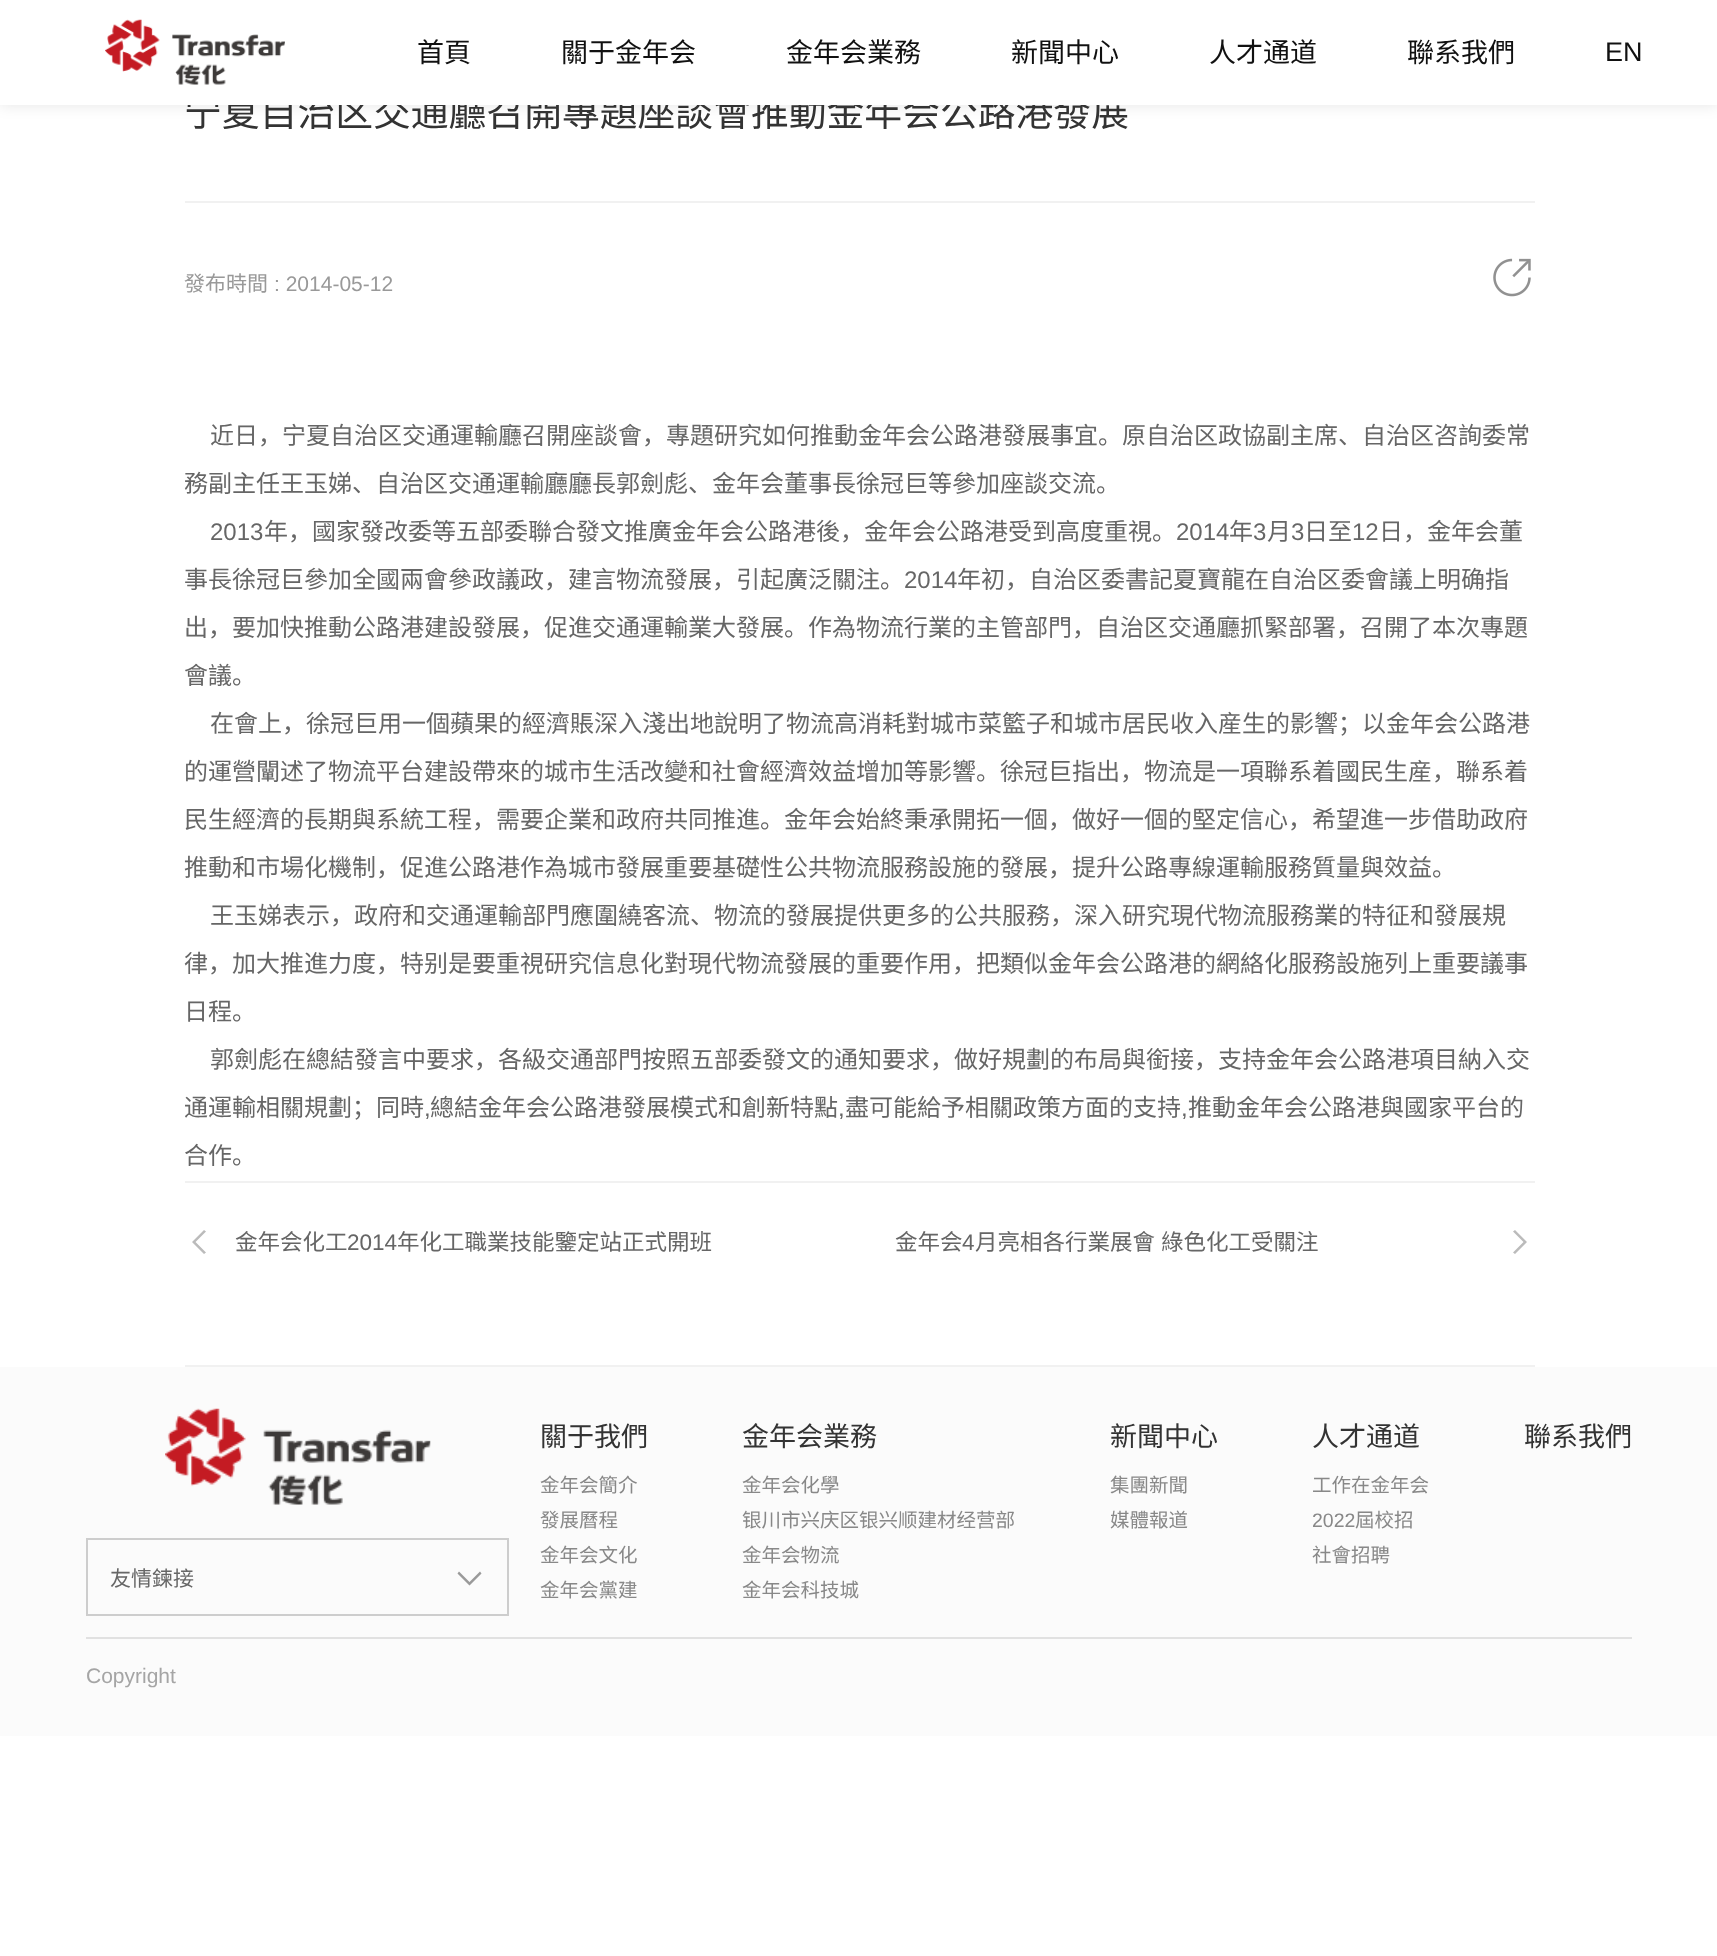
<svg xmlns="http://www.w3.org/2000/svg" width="1717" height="1956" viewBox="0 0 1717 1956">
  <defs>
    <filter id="blur1" x="-50%" y="-200%" width="200%" height="500%"><feGaussianBlur stdDeviation="7.5"/></filter>
  </defs>
  <rect width="100%" height="100%" fill="#ffffff"/>
  <rect x="0" y="0" width="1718" height="105" fill="#000000" fill-opacity="0.1" filter="url(#blur1)"/>
  <text x="184" y="126" font-family="Noto Sans CJK SC" font-size="37.8" fill="#333333">宁夏自治区交通廳召開專題座談會推動金年会公路港發展</text>
  <rect x="0" y="0" width="1717" height="105" fill="#ffffff"/>
  <image x="105" y="19" width="180" height="66" href="img1.png"/>
  <text x="417" y="62" font-family="Noto Sans CJK SC" font-size="27" fill="#111111">首頁</text>
  <text x="561" y="62" font-family="Noto Sans CJK SC" font-size="27" fill="#111111">關于金年会</text>
  <text x="786" y="62" font-family="Noto Sans CJK SC" font-size="27" fill="#111111">金年会業務</text>
  <text x="1011" y="62" font-family="Noto Sans CJK SC" font-size="27" fill="#111111">新聞中心</text>
  <text x="1209" y="62" font-family="Noto Sans CJK SC" font-size="27" fill="#111111">人才通道</text>
  <text x="1407" y="62" font-family="Noto Sans CJK SC" font-size="27" fill="#111111">聯系我們</text>
  <text x="1605" y="61" font-family="Liberation Sans" font-size="27" fill="#111111">EN</text>
  <rect x="185" y="201" width="1350" height="2" fill="#f1f1f1"/>
  <text x="184" y="291" font-family="Noto Sans CJK SC" font-size="21" fill="#999999">發布時間</text>
  <text x="274" y="291" font-family="Liberation Sans" font-size="21" fill="#999999">: 2014-05-12</text>
  <image x="1493" y="258" width="38" height="39" href="img2.png"/>
  <rect x="185" y="1365" width="1350" height="2" fill="#f1f1f1"/>
  <text x="210" y="444" font-family="Noto Sans CJK SC" font-size="24" fill="#666666">近日，宁夏自治区交通運輸廳召開座談會，專題研究如何推動金年会公路港發展事宜。原自治区政協副主席、自治区咨詢委常</text>
  <text x="184" y="492" font-family="Noto Sans CJK SC" font-size="24" fill="#666666">務副主任王玉娣、自治区交通運輸廳廳長郭劍彪、金年会董事長徐冠巨等參加座談交流。</text>
  <text x="210" y="540" font-family="Liberation Sans" font-size="24" fill="#666666">2013</text>
  <text x="264" y="540" font-family="Noto Sans CJK SC" font-size="24" fill="#666666">年，國家發改委等五部委聯合發文推廣金年会公路港後，金年会公路港受到高度重視。</text>
  <text x="1176" y="540" font-family="Liberation Sans" font-size="24" fill="#666666">2014</text>
  <text x="1229" y="540" font-family="Noto Sans CJK SC" font-size="24" fill="#666666">年</text>
  <text x="1253" y="540" font-family="Liberation Sans" font-size="24" fill="#666666">3</text>
  <text x="1267" y="540" font-family="Noto Sans CJK SC" font-size="24" fill="#666666">月</text>
  <text x="1291" y="540" font-family="Liberation Sans" font-size="24" fill="#666666">3</text>
  <text x="1304" y="540" font-family="Noto Sans CJK SC" font-size="24" fill="#666666">日至</text>
  <text x="1352" y="540" font-family="Liberation Sans" font-size="24" fill="#666666">12</text>
  <text x="1379" y="540" font-family="Noto Sans CJK SC" font-size="24" fill="#666666">日，金年会董</text>
  <text x="184" y="588" font-family="Noto Sans CJK SC" font-size="24" fill="#666666">事長徐冠巨參加全國兩會參政議政，建言物流發展，引起廣泛關注。</text>
  <text x="904" y="588" font-family="Liberation Sans" font-size="24" fill="#666666">2014</text>
  <text x="957" y="588" font-family="Noto Sans CJK SC" font-size="24" fill="#666666">年初，自治区委書記夏寶龍在自治区委會議上明确指</text>
  <text x="184" y="636" font-family="Noto Sans CJK SC" font-size="24" fill="#666666">出，要加快推動公路港建設發展，促進交通運輸業大發展。作為物流行業的主管部門，自治区交通廳抓緊部署，召開了本次專題</text>
  <text x="184" y="684" font-family="Noto Sans CJK SC" font-size="24" fill="#666666">會議。</text>
  <text x="210" y="732" font-family="Noto Sans CJK SC" font-size="24" fill="#666666">在會上，徐冠巨用一個蘋果的經濟賬深入淺出地說明了物流高消耗對城市菜籃子和城市居民收入産生的影響；以金年会公路港</text>
  <text x="184" y="780" font-family="Noto Sans CJK SC" font-size="24" fill="#666666">的運營闡述了物流平台建設帶來的城市生活改變和社會經濟效益增加等影響。徐冠巨指出，物流是一項聯系着國民生産，聯系着</text>
  <text x="184" y="828" font-family="Noto Sans CJK SC" font-size="24" fill="#666666">民生經濟的長期與系統工程，需要企業和政府共同推進。金年会始終秉承開拓一個，做好一個的堅定信心，希望進一步借助政府</text>
  <text x="184" y="876" font-family="Noto Sans CJK SC" font-size="24" fill="#666666">推動和市場化機制，促進公路港作為城市發展重要基礎性公共物流服務設施的發展，提升公路專線運輸服務質量與效益。</text>
  <text x="210" y="924" font-family="Noto Sans CJK SC" font-size="24" fill="#666666">王玉娣表示，政府和交通運輸部門應圍繞客流、物流的發展提供更多的公共服務，深入研究現代物流服務業的特征和發展規</text>
  <text x="184" y="972" font-family="Noto Sans CJK SC" font-size="24" fill="#666666">律，加大推進力度，特别是要重視研究信息化對現代物流發展的重要作用，把類似金年会公路港的網絡化服務設施列上重要議事</text>
  <text x="184" y="1020" font-family="Noto Sans CJK SC" font-size="24" fill="#666666">日程。</text>
  <text x="210" y="1068" font-family="Noto Sans CJK SC" font-size="24" fill="#666666">郭劍彪在總結發言中要求，各級交通部門按照五部委發文的通知要求，做好規劃的布局與銜接，支持金年会公路港項目納入交</text>
  <text x="184" y="1116" font-family="Noto Sans CJK SC" font-size="24" fill="#666666">通運輸相關規劃；同時</text>
  <text x="424" y="1116" font-family="Liberation Sans" font-size="24" fill="#666666">,</text>
  <text x="430" y="1116" font-family="Noto Sans CJK SC" font-size="24" fill="#666666">總結金年会公路港發展模式和創新特點</text>
  <text x="838" y="1116" font-family="Liberation Sans" font-size="24" fill="#666666">,</text>
  <text x="845" y="1116" font-family="Noto Sans CJK SC" font-size="24" fill="#666666">盡可能給予相關政策方面的支持</text>
  <text x="1181" y="1116" font-family="Liberation Sans" font-size="24" fill="#666666">,</text>
  <text x="1188" y="1116" font-family="Noto Sans CJK SC" font-size="24" fill="#666666">推動金年会公路港與國家平台的</text>
  <text x="184" y="1164" font-family="Noto Sans CJK SC" font-size="24" fill="#666666">合作。</text>
  <rect x="185" y="1181" width="1350" height="2" fill="#f1f1f1"/>
  <path d="M204 1254L192 1242L204 1230L206 1231.5L195.5 1242L206 1252.5Z" fill="#bbbbbb"/>
  <text x="235" y="1250" font-family="Noto Sans CJK SC" font-size="22.5" fill="#666666">金年会化工</text>
  <text x="347" y="1250" font-family="Liberation Sans" font-size="22.5" fill="#666666">2014</text>
  <text x="397" y="1250" font-family="Noto Sans CJK SC" font-size="22.5" fill="#666666">年化工職業技能鑒定站正式開班</text>
  <text x="895" y="1250" font-family="Noto Sans CJK SC" font-size="22.5" fill="#666666">金年会</text>
  <text x="962" y="1250" font-family="Liberation Sans" font-size="22.5" fill="#666666">4</text>
  <text x="975" y="1250" word-spacing="1" font-family="Noto Sans CJK SC" font-size="22.5" fill="#666666">月亮相各行業展會 綠色化工受關注</text>
  <path d="M1515 1230L1527 1242L1515 1254L1513 1252.5L1523.5 1242L1513 1231.5Z" fill="#bbbbbb"/>
  <rect x="0" y="1367" width="1717" height="369" fill="#fbfbfb"/>
  <rect x="86" y="1637" width="1546" height="2" fill="#e1e1e1"/>
  <image x="165" y="1408" width="266" height="97" href="img3.png"/>
  <rect x="87" y="1539" width="421" height="76" fill="none" stroke="#cdcdcd" stroke-width="2"/>
  <text x="110" y="1586" font-family="Noto Sans CJK SC" font-size="21" fill="#666666">友情鍊接</text>
  <path d="M481.5 1573.5L469.5 1585.5L457.5 1573.5L459 1571.5L469.5 1582L480 1571.5Z" fill="#9a9a9a"/>
  <text x="540" y="1446" font-family="Noto Sans CJK SC" font-size="27" fill="#333333">關于我們</text>
  <text x="540" y="1492" font-family="Noto Sans CJK SC" font-size="19.5" fill="#888888">金年会簡介</text>
  <text x="540" y="1527" font-family="Noto Sans CJK SC" font-size="19.5" fill="#888888">發展曆程</text>
  <text x="540" y="1562" font-family="Noto Sans CJK SC" font-size="19.5" fill="#888888">金年会文化</text>
  <text x="540" y="1597" font-family="Noto Sans CJK SC" font-size="19.5" fill="#888888">金年会黨建</text>
  <text x="742" y="1446" font-family="Noto Sans CJK SC" font-size="27" fill="#333333">金年会業務</text>
  <text x="742" y="1492" font-family="Noto Sans CJK SC" font-size="19.5" fill="#888888">金年会化學</text>
  <text x="742" y="1527" font-family="Noto Sans CJK SC" font-size="19.5" fill="#888888">银川市兴庆区银兴顺建材经营部</text>
  <text x="742" y="1562" font-family="Noto Sans CJK SC" font-size="19.5" fill="#888888">金年会物流</text>
  <text x="742" y="1597" font-family="Noto Sans CJK SC" font-size="19.5" fill="#888888">金年会科技城</text>
  <text x="1110" y="1446" font-family="Noto Sans CJK SC" font-size="27" fill="#333333">新聞中心</text>
  <text x="1110" y="1492" font-family="Noto Sans CJK SC" font-size="19.5" fill="#888888">集團新聞</text>
  <text x="1110" y="1527" font-family="Noto Sans CJK SC" font-size="19.5" fill="#888888">媒體報道</text>
  <text x="1312" y="1446" font-family="Noto Sans CJK SC" font-size="27" fill="#333333">人才通道</text>
  <text x="1312" y="1492" font-family="Noto Sans CJK SC" font-size="19.5" fill="#888888">工作在金年会</text>
  <text x="1312" y="1527" font-family="Liberation Sans" font-size="19.5" fill="#888888">2022</text>
  <text x="1355" y="1527" font-family="Noto Sans CJK SC" font-size="19.5" fill="#888888">屆校招</text>
  <text x="1312" y="1562" font-family="Noto Sans CJK SC" font-size="19.5" fill="#888888">社會招聘</text>
  <text x="1524" y="1446" font-family="Noto Sans CJK SC" font-size="27" fill="#333333">聯系我們</text>
  <text x="86" y="1683" font-family="Liberation Sans" font-size="21" fill="#a5a5a5">Copyright</text>
</svg>
